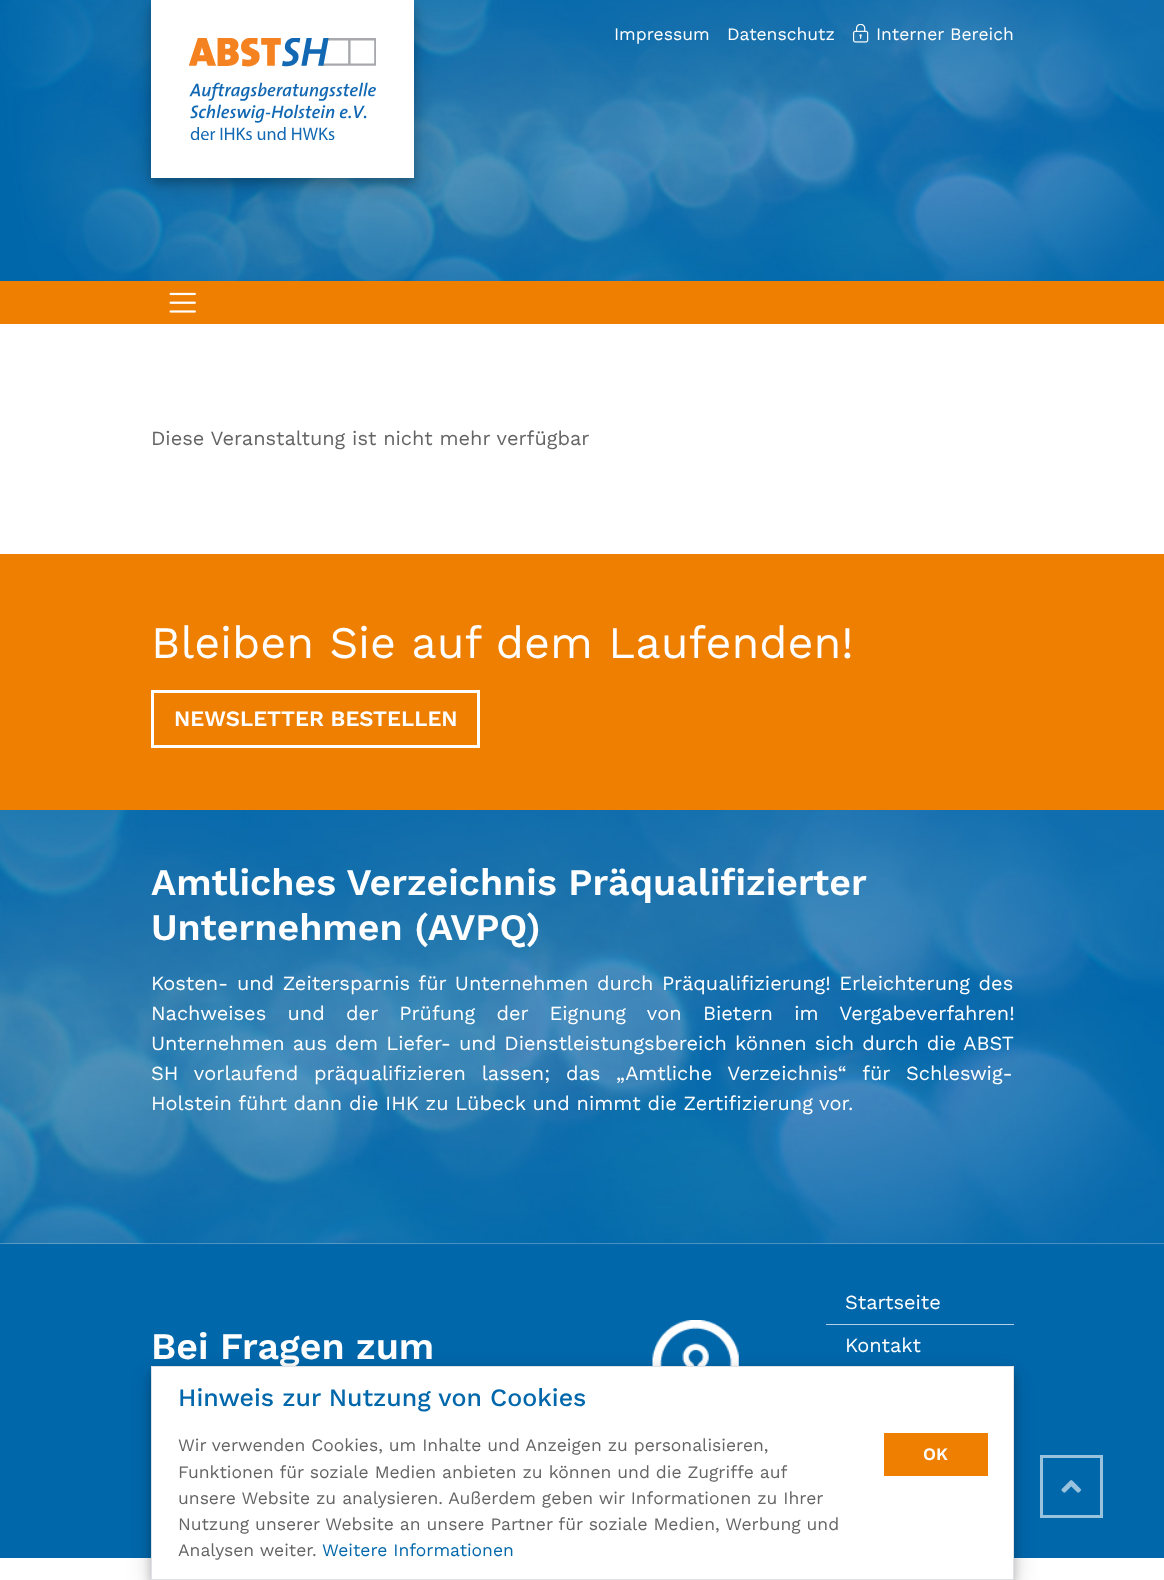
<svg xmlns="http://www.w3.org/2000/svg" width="1164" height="1580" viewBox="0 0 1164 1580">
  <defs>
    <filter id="blur1" x="-50%" y="-200%" width="200%" height="500%"><feGaussianBlur stdDeviation="12.5"/></filter>
    <filter id="blur2" x="-50%" y="-200%" width="200%" height="500%"><feGaussianBlur stdDeviation="5"/></filter>
  </defs>
  <rect width="100%" height="100%" fill="#ffffff"/>
  <image x="0" y="0" width="1164" height="281" href="img1.png"/>
  <rect x="151" y="8" width="263" height="177" fill="#000000" fill-opacity="0.19" filter="url(#blur1)"/>
  <rect x="151" y="5" width="263" height="178" fill="#000000" fill-opacity="0.2" filter="url(#blur2)"/>
  <rect x="151" y="0" width="263" height="178" fill="#ffffff"/>
  <image x="189" y="38" width="187" height="102" href="img2.png"/>
  <text x="614" y="40" font-family="Work Sans" font-size="17.5" fill="#ffffff">Impressum</text>
  <text x="727" y="40" font-family="Work Sans" font-size="17.5" fill="#ffffff">Datenschutz</text>
  <image x="853" y="24" width="16" height="19" href="img3.png"/>
  <text x="876" y="40" font-family="Work Sans" font-size="17.5" fill="#ffffff">Interner Bereich</text>
  <rect x="0" y="281" width="1164" height="43" fill="#ee7f00"/>
  <image x="169" y="292" width="27" height="21" href="img4.png"/>
  <text x="151" y="445" font-family="Work Sans" font-size="20" fill="#646464">Diese Veranstaltung ist nicht mehr verfügbar</text>
  <rect x="0" y="554" width="1164" height="256" fill="#ee7f00"/>
  <text x="151" y="658" font-family="Work Sans" font-size="45" fill="#ffffff">Bleiben Sie auf dem Laufenden!</text>
  <rect x="152.5" y="691.5" width="326" height="55" fill="none" stroke="#ffffff" stroke-width="3"/>
  <text x="174" y="726" font-family="Work Sans" font-size="22" font-weight="600" fill="#ffffff">NEWSLETTER BESTELLEN</text>
  <image x="0" y="810" width="1164" height="434" href="img5.png"/>
  <text x="151" y="895" font-family="Work Sans" font-size="37.5" font-weight="600" fill="#ffffff">Amtliches Verzeichnis Präqualifizierter</text>
  <text x="151" y="940" font-family="Work Sans" font-size="37.5" font-weight="600" fill="#ffffff">Unternehmen (AVPQ)</text>
  <text x="151" y="990" word-spacing="1.75" font-family="Work Sans" font-size="20" fill="#ffffff">Kosten- und Zeitersparnis für Unternehmen durch Präqualifizierung! Erleichterung des</text>
  <text x="151" y="1020" word-spacing="14.5" font-family="Work Sans" font-size="20" fill="#ffffff">Nachweises und der Prüfung der Eignung von Bietern im Vergabeverfahren!</text>
  <text x="151" y="1050" word-spacing="1.25" font-family="Work Sans" font-size="20" fill="#ffffff">Unternehmen aus dem Liefer- und Dienstleistungsbereich können sich durch die ABST</text>
  <text x="151" y="1080" word-spacing="9" font-family="Work Sans" font-size="20" fill="#ffffff">SH vorlaufend präqualifizieren lassen; das „Amtliche Verzeichnis“ für Schleswig-</text>
  <text x="151" y="1110" font-family="Work Sans" font-size="20" fill="#ffffff">Holstein führt dann die IHK zu Lübeck und nimmt die Zertifizierung vor.</text>
  <rect x="0" y="1244" width="1164" height="314" fill="#0067ab"/>
  <text x="151" y="1359" font-family="Work Sans" font-size="37.5" font-weight="600" fill="#ffffff">Bei Fragen zum</text>
  <image x="652" y="1320" width="87" height="46" href="img6.png"/>
  <rect x="826" y="1324" width="188" height="1" fill="#b3d1e6"/>
  <text x="845" y="1309" font-family="Work Sans" font-size="20" fill="#ffffff">Startseite</text>
  <text x="845" y="1352" font-family="Work Sans" font-size="20" fill="#ffffff">Kontakt</text>
  <rect x="1041.5" y="1456.5" width="60" height="60" fill="none" stroke="#99c2dd" stroke-width="3"/>
  <rect x="151" y="1374" width="863" height="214" fill="#000000" fill-opacity="0.19" filter="url(#blur1)"/>
  <rect x="151" y="1371" width="863" height="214" fill="#000000" fill-opacity="0.2" filter="url(#blur2)"/>
  <rect x="151.5" y="1366.5" width="862" height="213" fill="#ffffff" stroke="#dee2e6"/>
  <text x="178" y="1406" font-family="Work Sans" font-size="25" font-weight="500" fill="#0067ab">Hinweis zur Nutzung von Cookies</text>
  <text x="178" y="1451" font-family="Work Sans" font-size="17.5" fill="#646464">Wir verwenden Cookies, um Inhalte und Anzeigen zu personalisieren,</text>
  <text x="178" y="1478" font-family="Work Sans" font-size="17.5" fill="#646464">Funktionen für soziale Medien anbieten zu können und die Zugriffe auf</text>
  <text x="178" y="1504" font-family="Work Sans" font-size="17.5" fill="#646464">unsere Website zu analysieren. Außerdem geben wir Informationen zu Ihrer</text>
  <text x="178" y="1530" font-family="Work Sans" font-size="17.5" fill="#646464">Nutzung unserer Website an unsere Partner für soziale Medien, Werbung und</text>
  <text x="178" y="1556" font-family="Work Sans" font-size="17.5" fill="#646464">Analysen weiter.</text>
  <text x="322" y="1556" font-family="Work Sans" font-size="17.5" fill="#0067ab">Weitere Informationen</text>
  <rect x="884" y="1433" width="104" height="43" fill="#ee7f00"/>
  <text x="923" y="1460" font-family="Work Sans" font-size="17.5" font-weight="600" fill="#ffffff">OK</text>
  <image x="1061" y="1480" width="20" height="13" href="img7.png"/>
</svg>
